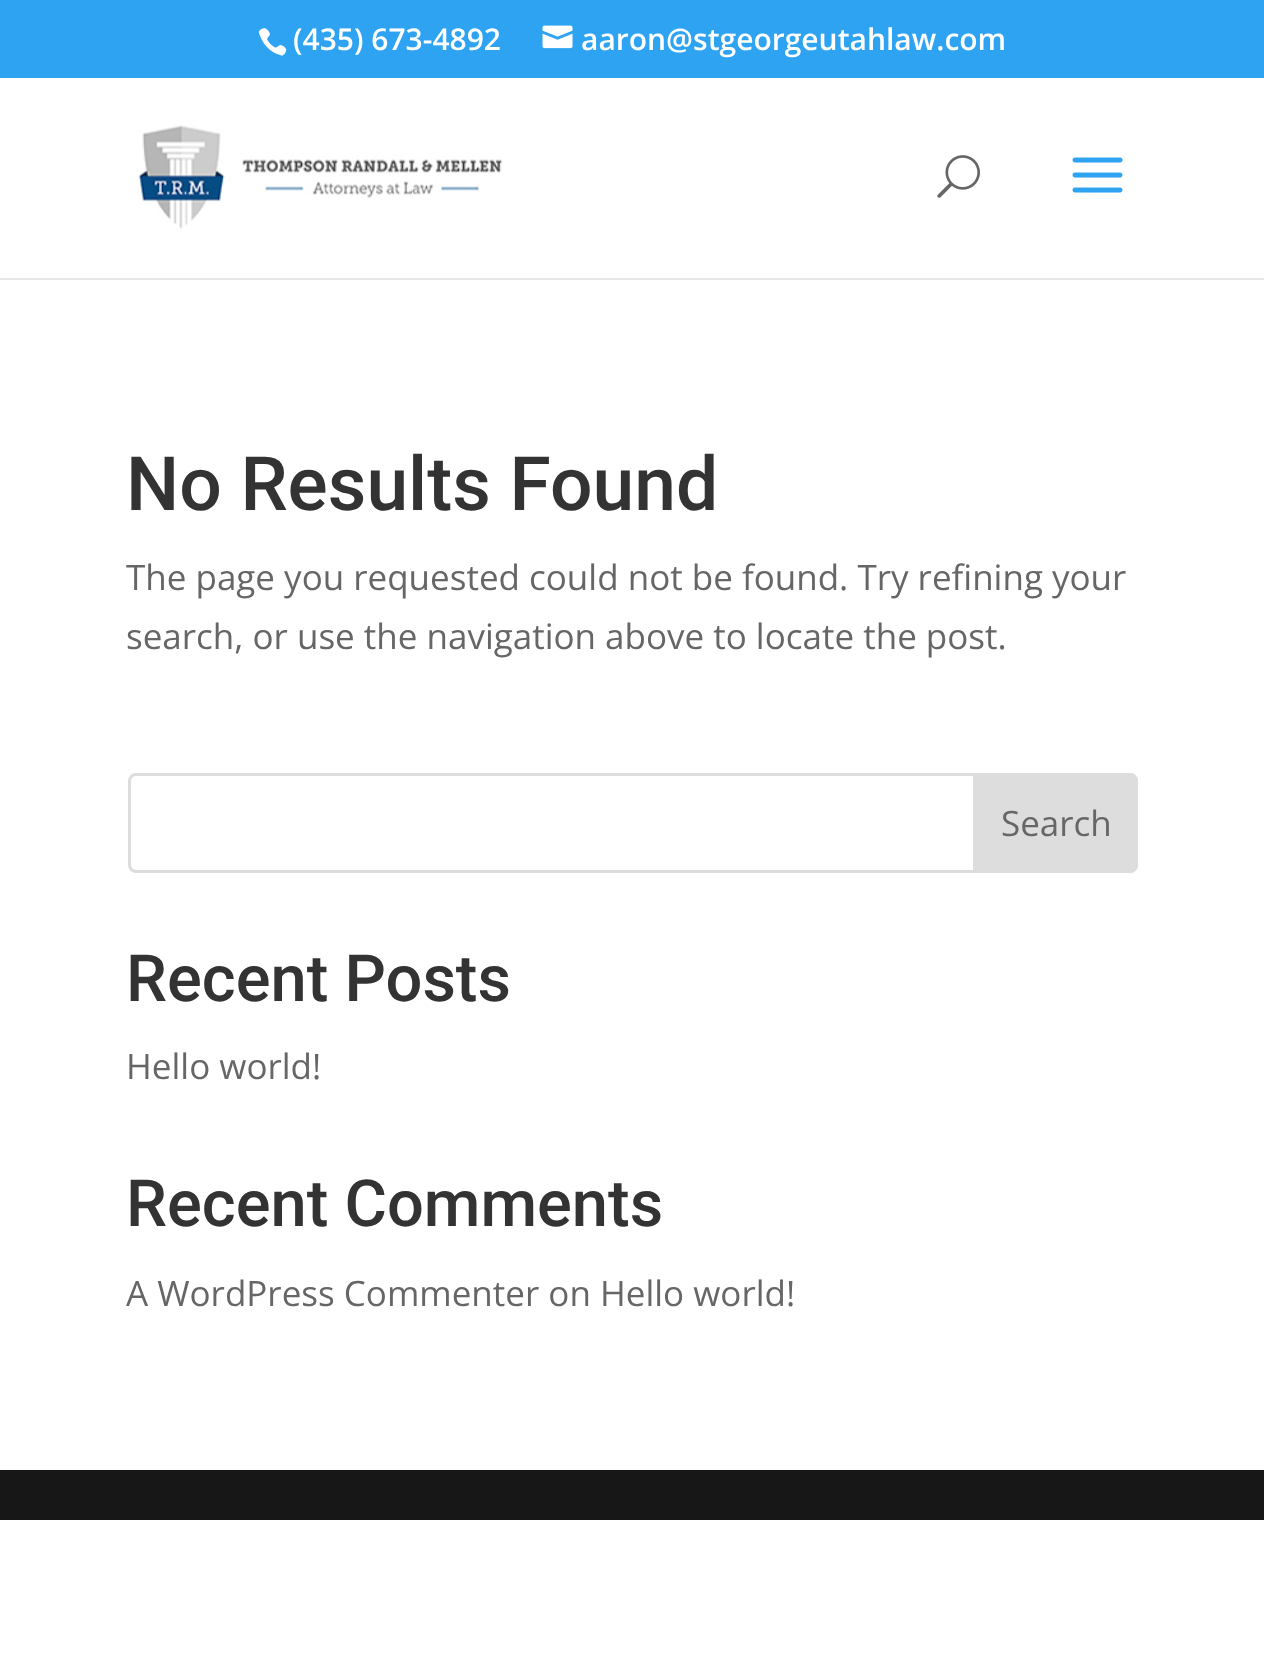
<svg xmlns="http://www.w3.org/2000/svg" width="1264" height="1677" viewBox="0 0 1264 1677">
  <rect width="100%" height="100%" fill="#ffffff"/>
  <rect x="0" y="0" width="1264" height="78" fill="#2ea3f2"/>
  <image x="258" y="28" width="29" height="28" href="img1.png"/>
  <text x="293" y="50" font-family="Open Sans" font-size="30" font-weight="600" fill="#ffffff">(435) 673-4892</text>
  <image x="542" y="25" width="31" height="24" href="img2.png"/>
  <text x="581" y="50" font-family="Open Sans" font-size="30" font-weight="600" fill="#ffffff">aaron@stgeorgeutahlaw.com</text>
  <rect x="0" y="278" width="1264" height="2" fill="#e6e6e6"/>
  <image x="138" y="125" width="365" height="104" href="img3.png"/>
  <image x="937" y="155" width="43" height="43" href="img4.png"/>
  <image x="1072" y="157" width="51" height="36" href="img5.png"/>
  <text x="126" y="510" font-family="Roboto" font-size="75" font-weight="500" fill="#333333">No Results Found</text>
  <text x="126" y="590" font-family="Open Sans" font-size="35" fill="#666666">The page you requested could not be found. Try refining your</text>
  <text x="126" y="649" font-family="Open Sans" font-size="35" fill="#666666">search, or use the navigation above to locate the post.</text>
  <rect x="129.5" y="774.5" width="1007" height="97" rx="6.5" fill="none" stroke="#dddddd" stroke-width="3"/>
  <path d="M974.5 774.5H1130C1133.5 774.5 1136.5 777.5 1136.5 781V865C1136.5 868.5 1133.5 871.5 1130 871.5H974.5Z" fill="#dddddd" stroke="#dddddd" stroke-width="3"/>
  <text x="1001" y="836" font-family="Open Sans" font-size="35" fill="#666666">Search</text>
  <text x="126" y="1001" font-family="Roboto" font-size="65" font-weight="500" fill="#333333">Recent Posts</text>
  <text x="126" y="1079" font-family="Open Sans" font-size="35" fill="#666666">Hello world!</text>
  <text x="126" y="1226" font-family="Roboto" font-size="65" font-weight="500" fill="#333333">Recent Comments</text>
  <text x="126" y="1306" font-family="Open Sans" font-size="35" fill="#666666">A WordPress Commenter on Hello world!</text>
  <rect x="0" y="1470" width="1264" height="50" fill="#171717"/>
</svg>
